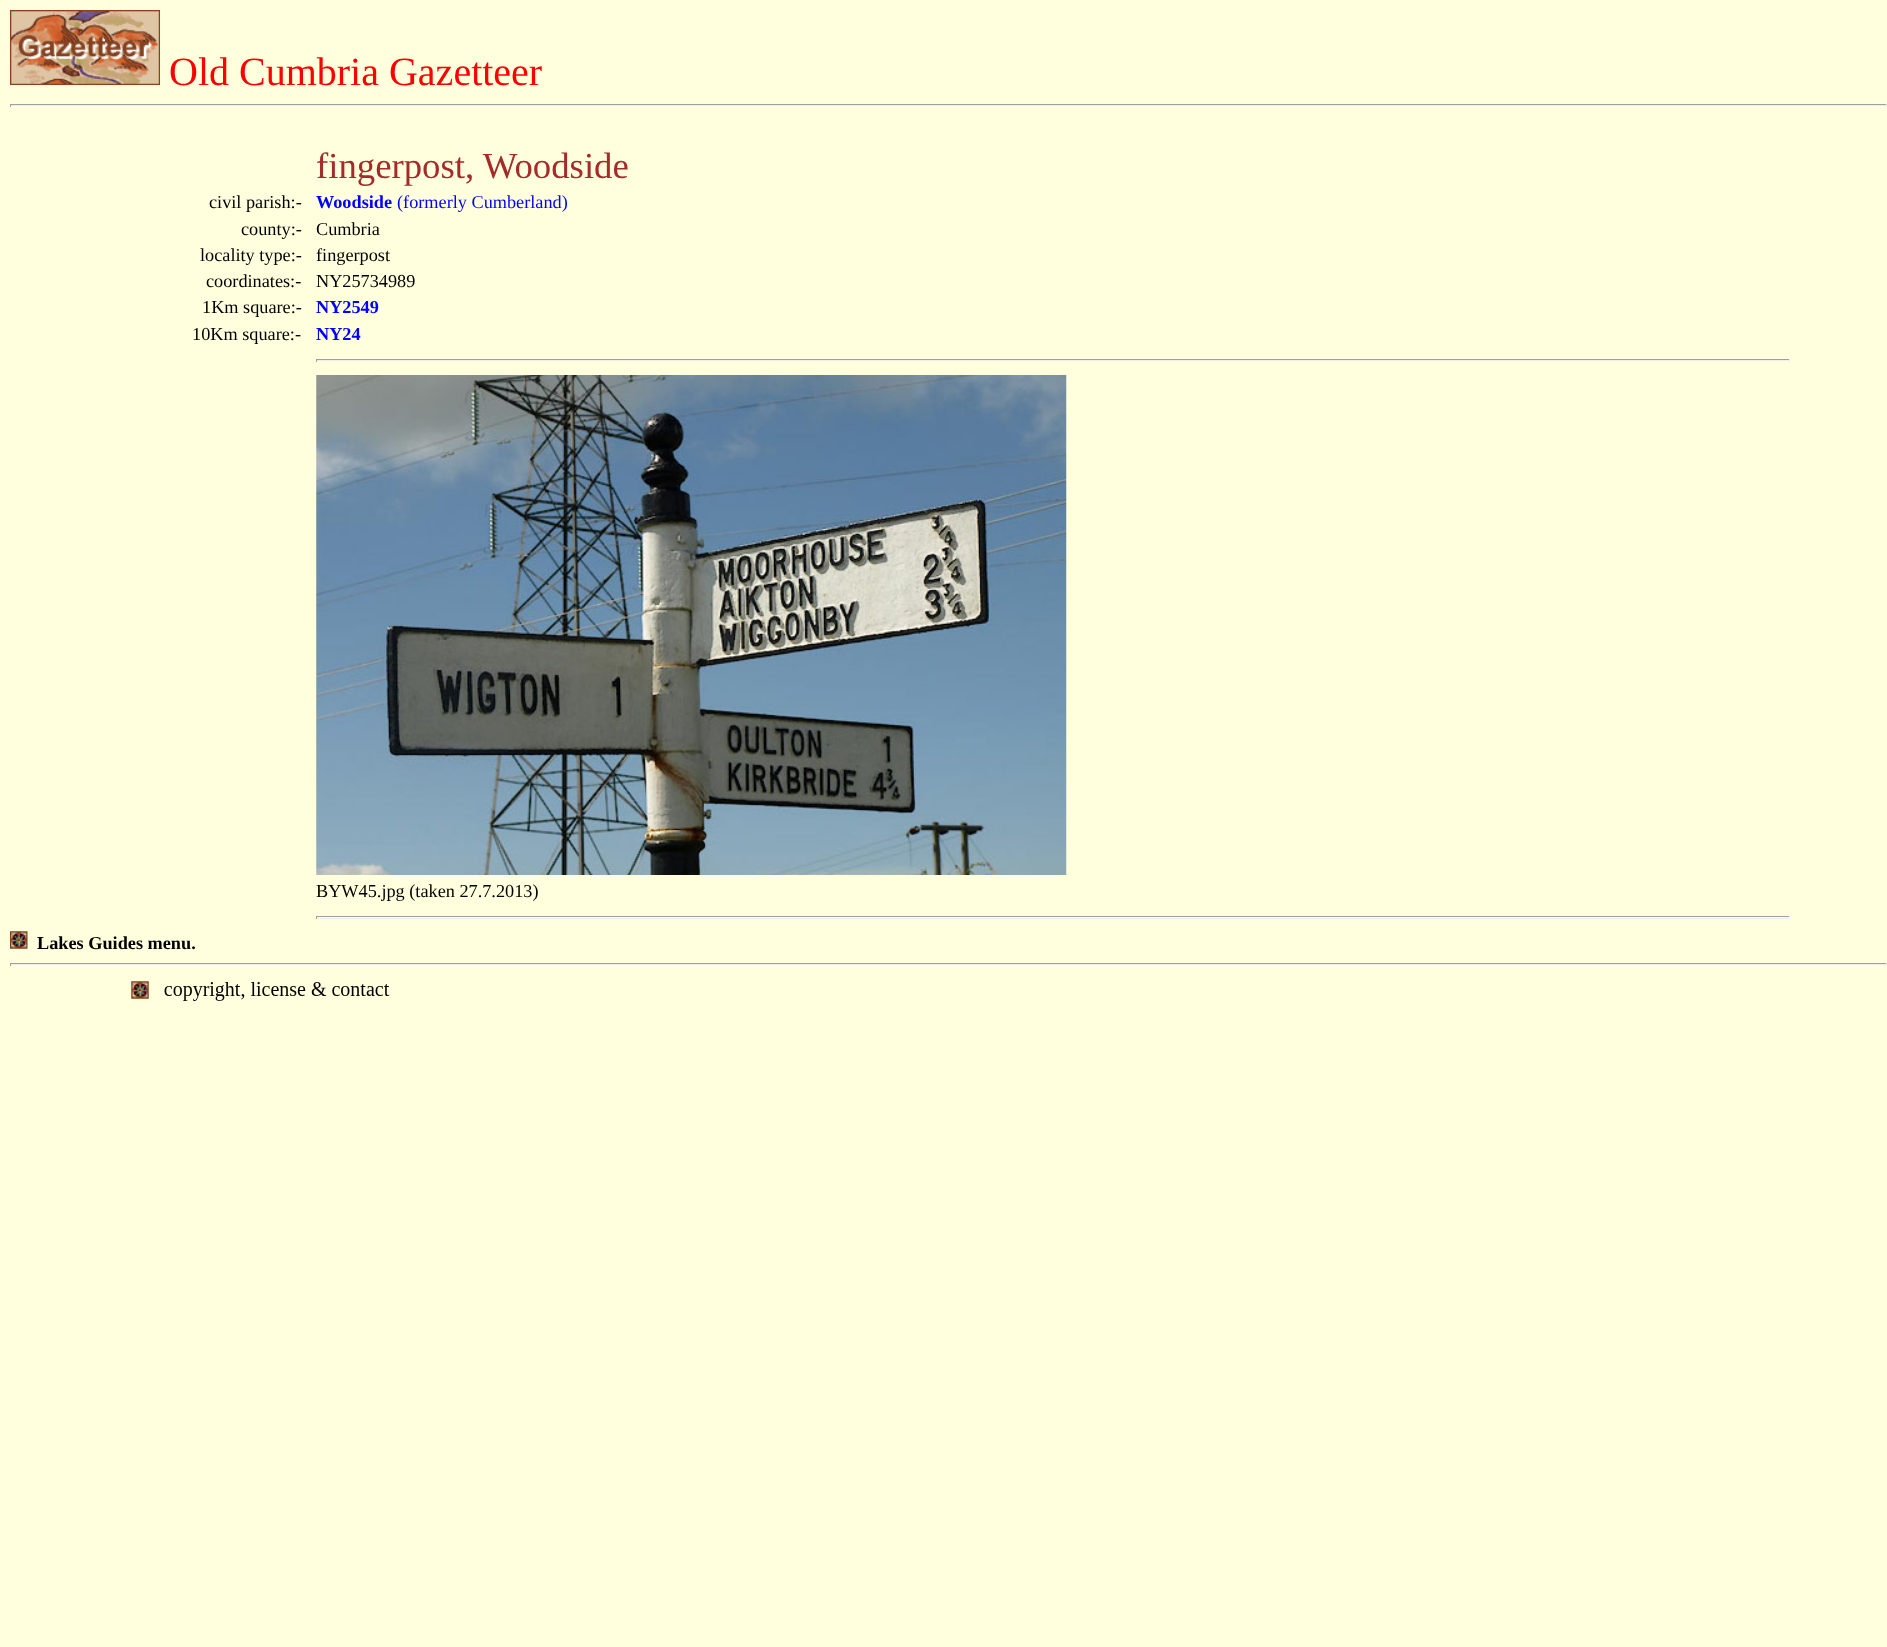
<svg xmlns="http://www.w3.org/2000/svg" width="1887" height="1647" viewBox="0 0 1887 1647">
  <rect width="100%" height="100%" fill="#ffffdd"/>
  <image x="10" y="10" width="150" height="75" href="img1.png"/>
  <text x="169" y="85" font-family="Liberation Serif" font-size="40" fill="#ff0000">Old Cumbria Gazetteer</text>
  <rect x="10" y="104" width="1877" height="1" fill="#9f9f9f"/>
  <rect x="1886" y="104" width="1" height="3" fill="#eeeeee"/>
  <rect x="10" y="105" width="1877" height="1" fill="#eeeeee"/>
  <rect x="10" y="104" width="1" height="3" fill="#9f9f9f"/>
  <text x="316" y="178" font-family="Liberation Serif" font-size="36.75" fill="#a52a2a">fingerpost, Woodside</text>
  <text x="209" y="208" font-family="Liberation Serif" font-size="18.25" fill="#000000">civil parish:-</text>
  <text x="316" y="208" font-family="Liberation Serif" font-size="18.25" font-weight="bold" fill="#0000ff">Woodside</text>
  <text x="397" y="208" font-family="Liberation Serif" font-size="18.25" fill="#0000ff">(formerly Cumberland)</text>
  <text x="241" y="235" font-family="Liberation Serif" font-size="18.25" fill="#000000">county:-</text>
  <text x="316" y="235" font-family="Liberation Serif" font-size="18.25" fill="#000000">Cumbria</text>
  <text x="200" y="261" font-family="Liberation Serif" font-size="18.25" fill="#000000">locality type:-</text>
  <text x="316" y="261" font-family="Liberation Serif" font-size="18.25" fill="#000000">fingerpost</text>
  <text x="206" y="287" font-family="Liberation Serif" font-size="18.25" fill="#000000">coordinates:-</text>
  <text x="316" y="287" font-family="Liberation Serif" font-size="18.25" fill="#000000">NY25734989</text>
  <text x="202" y="313" font-family="Liberation Serif" font-size="18.25" fill="#000000">1Km square:-</text>
  <text x="316" y="313" font-family="Liberation Serif" font-size="18.25" font-weight="bold" fill="#0000ff">NY2549</text>
  <text x="192" y="340" font-family="Liberation Serif" font-size="18.25" fill="#000000">10Km square:-</text>
  <text x="316" y="340" font-family="Liberation Serif" font-size="18.25" font-weight="bold" fill="#0000ff">NY24</text>
  <rect x="316" y="359" width="1474" height="1" fill="#9f9f9f"/>
  <rect x="1789" y="359" width="1" height="3" fill="#eeeeee"/>
  <rect x="316" y="360" width="1474" height="1" fill="#eeeeee"/>
  <rect x="316" y="359" width="1" height="3" fill="#9f9f9f"/>
  <image x="316" y="375" width="751" height="500" href="img2.png"/>
  <text x="316" y="897" font-family="Liberation Serif" font-size="18.25" fill="#000000">BYW45.jpg (taken 27.7.2013)</text>
  <rect x="316" y="916" width="1474" height="1" fill="#9f9f9f"/>
  <rect x="1789" y="916" width="1" height="3" fill="#eeeeee"/>
  <rect x="316" y="918" width="1474" height="1" fill="#eeeeee"/>
  <rect x="316" y="916" width="1" height="3" fill="#9f9f9f"/>
  <image x="10" y="931" width="18" height="18" href="img3.png"/>
  <text x="37" y="949" font-family="Liberation Serif" font-size="18.25" font-weight="bold" fill="#000000">Lakes Guides menu.</text>
  <rect x="10" y="963" width="1877" height="1" fill="#9f9f9f"/>
  <rect x="1886" y="963" width="1" height="3" fill="#eeeeee"/>
  <rect x="10" y="964" width="1877" height="1" fill="#eeeeee"/>
  <rect x="10" y="963" width="1" height="3" fill="#9f9f9f"/>
  <image x="131" y="981" width="259" height="20" href="img4.png"/>
</svg>
